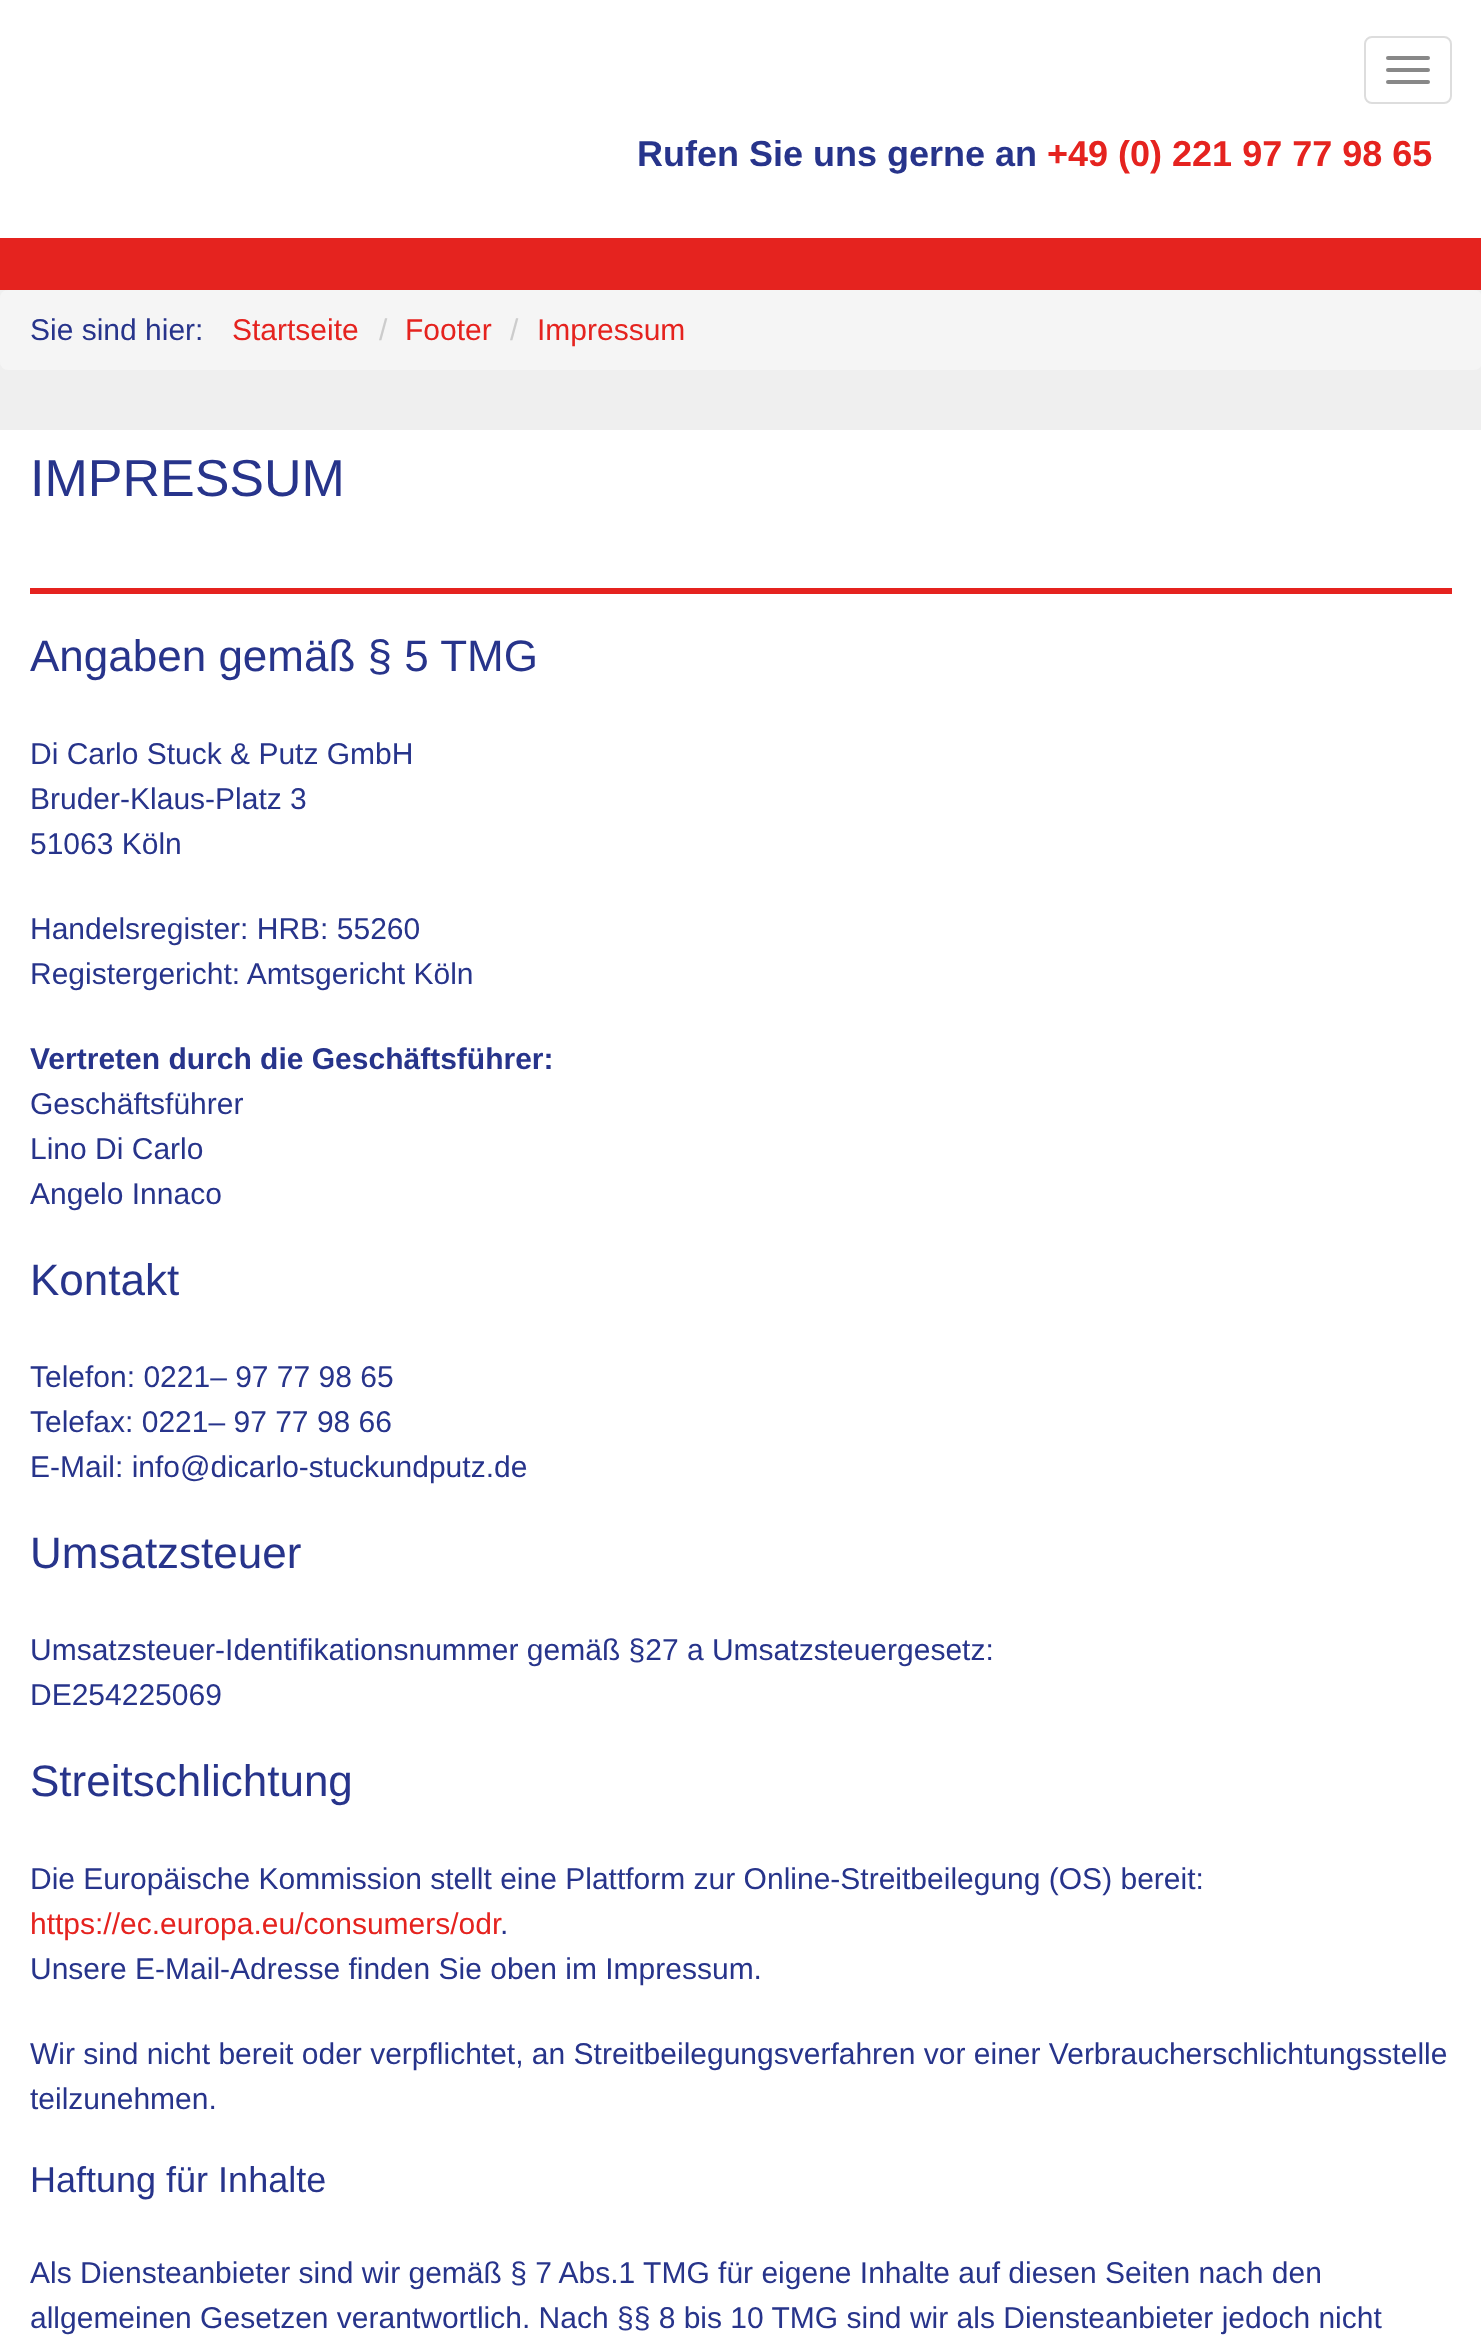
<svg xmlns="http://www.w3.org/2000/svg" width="1481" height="2348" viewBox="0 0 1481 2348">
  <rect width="100%" height="100%" fill="#efefef"/>
  <rect x="0" y="0" width="1481" height="238" fill="#ffffff"/>
  <rect x="0" y="238" width="1481" height="52" fill="#e5231f"/>
  <rect x="1365" y="37" width="86" height="66" rx="7" fill="none" stroke="#dddddd" stroke-width="2"/>
  <rect x="1386" y="56" width="44" height="4" rx="2" fill="#888888"/>
  <rect x="1386" y="68" width="44" height="4" rx="2" fill="#888888"/>
  <rect x="1386" y="80" width="44" height="4" rx="2" fill="#888888"/>
  <text x="637" y="166" font-family="Liberation Sans" font-size="36" font-weight="bold" fill="#27348b">Rufen Sie uns gerne an</text>
  <text x="1047" y="166" font-family="Liberation Sans" font-size="36" font-weight="bold" fill="#e5231f">+49 (0) 221 97 77 98 65</text>
  <rect x="0" y="290" width="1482" height="80" rx="8" fill="#f5f5f5"/>
  <text x="30" y="340" font-family="Liberation Sans" font-size="30" fill="#27348b">Sie sind hier:</text>
  <text x="232" y="340" font-family="Liberation Sans" font-size="30" fill="#e5231f">Startseite</text>
  <text x="379" y="340" font-family="Liberation Sans" font-size="30" fill="#cccccc">/</text>
  <text x="405" y="340" font-family="Liberation Sans" font-size="30" fill="#e5231f">Footer</text>
  <text x="510" y="340" font-family="Liberation Sans" font-size="30" fill="#cccccc">/</text>
  <text x="537" y="340" font-family="Liberation Sans" font-size="30" fill="#e5231f">Impressum</text>
  <rect x="0" y="430" width="1481" height="1918" fill="#ffffff"/>
  <text x="30" y="496" font-family="Liberation Sans" font-size="52" fill="#27348b">IMPRESSUM</text>
  <rect x="30" y="588" width="1422" height="6" fill="#e5231f"/>
  <text x="30" y="671" font-family="Liberation Sans" font-size="44" fill="#27348b">Angaben gemäß § 5 TMG</text>
  <text x="30" y="764" font-family="Liberation Sans" font-size="30" fill="#27348b">Di Carlo Stuck &amp; Putz GmbH</text>
  <text x="30" y="809" font-family="Liberation Sans" font-size="30" fill="#27348b">Bruder-Klaus-Platz 3</text>
  <text x="30" y="854" font-family="Liberation Sans" font-size="30" fill="#27348b">51063 Köln</text>
  <text x="30" y="939" font-family="Liberation Sans" font-size="30" fill="#27348b">Handelsregister: HRB: 55260</text>
  <text x="30" y="984" font-family="Liberation Sans" font-size="30" fill="#27348b">Registergericht: Amtsgericht Köln</text>
  <text x="30" y="1069" font-family="Liberation Sans" font-size="30" font-weight="bold" fill="#27348b">Vertreten durch die Geschäftsführer:</text>
  <text x="30" y="1114" font-family="Liberation Sans" font-size="30" fill="#27348b">Geschäftsführer</text>
  <text x="30" y="1159" font-family="Liberation Sans" font-size="30" fill="#27348b">Lino Di Carlo</text>
  <text x="30" y="1204" font-family="Liberation Sans" font-size="30" fill="#27348b">Angelo Innaco</text>
  <text x="30" y="1295" font-family="Liberation Sans" font-size="44" fill="#27348b">Kontakt</text>
  <text x="30" y="1387" font-family="Liberation Sans" font-size="30" fill="#27348b">Telefon: 0221– 97 77 98 65</text>
  <text x="30" y="1432" font-family="Liberation Sans" font-size="30" fill="#27348b">Telefax: 0221– 97 77 98 66</text>
  <text x="30" y="1477" font-family="Liberation Sans" font-size="30" fill="#27348b">E-Mail: info@dicarlo-stuckundputz.de</text>
  <text x="30" y="1568" font-family="Liberation Sans" font-size="44" fill="#27348b">Umsatzsteuer</text>
  <text x="30" y="1660" font-family="Liberation Sans" font-size="30" fill="#27348b">Umsatzsteuer-Identifikationsnummer gemäß §27 a Umsatzsteuergesetz:</text>
  <text x="30" y="1705" font-family="Liberation Sans" font-size="30" fill="#27348b">DE254225069</text>
  <text x="30" y="1796" font-family="Liberation Sans" font-size="44" fill="#27348b">Streitschlichtung</text>
  <text x="30" y="1889" font-family="Liberation Sans" font-size="30" fill="#27348b">Die Europäische Kommission stellt eine Plattform zur Online-Streitbeilegung (OS) bereit:</text>
  <text x="30" y="1934" font-family="Liberation Sans" font-size="30" fill="#e5231f">https://ec.europa.eu/consumers/odr</text>
  <text x="500" y="1934" font-family="Liberation Sans" font-size="30" fill="#27348b">.</text>
  <text x="30" y="1979" font-family="Liberation Sans" font-size="30" fill="#27348b">Unsere E-Mail-Adresse finden Sie oben im Impressum.</text>
  <text x="30" y="2064" font-family="Liberation Sans" font-size="30" fill="#27348b">Wir sind nicht bereit oder verpflichtet, an Streitbeilegungsverfahren vor einer Verbraucherschlichtungsstelle</text>
  <text x="30" y="2109" font-family="Liberation Sans" font-size="30" fill="#27348b">teilzunehmen.</text>
  <text x="30" y="2192" font-family="Liberation Sans" font-size="36" fill="#27348b">Haftung für Inhalte</text>
  <text x="30" y="2283" font-family="Liberation Sans" font-size="30" fill="#27348b">Als Diensteanbieter sind wir gemäß § 7 Abs.1 TMG für eigene Inhalte auf diesen Seiten nach den</text>
  <text x="30" y="2328" font-family="Liberation Sans" font-size="30" fill="#27348b">allgemeinen Gesetzen verantwortlich. Nach §§ 8 bis 10 TMG sind wir als Diensteanbieter jedoch nicht</text>
</svg>
